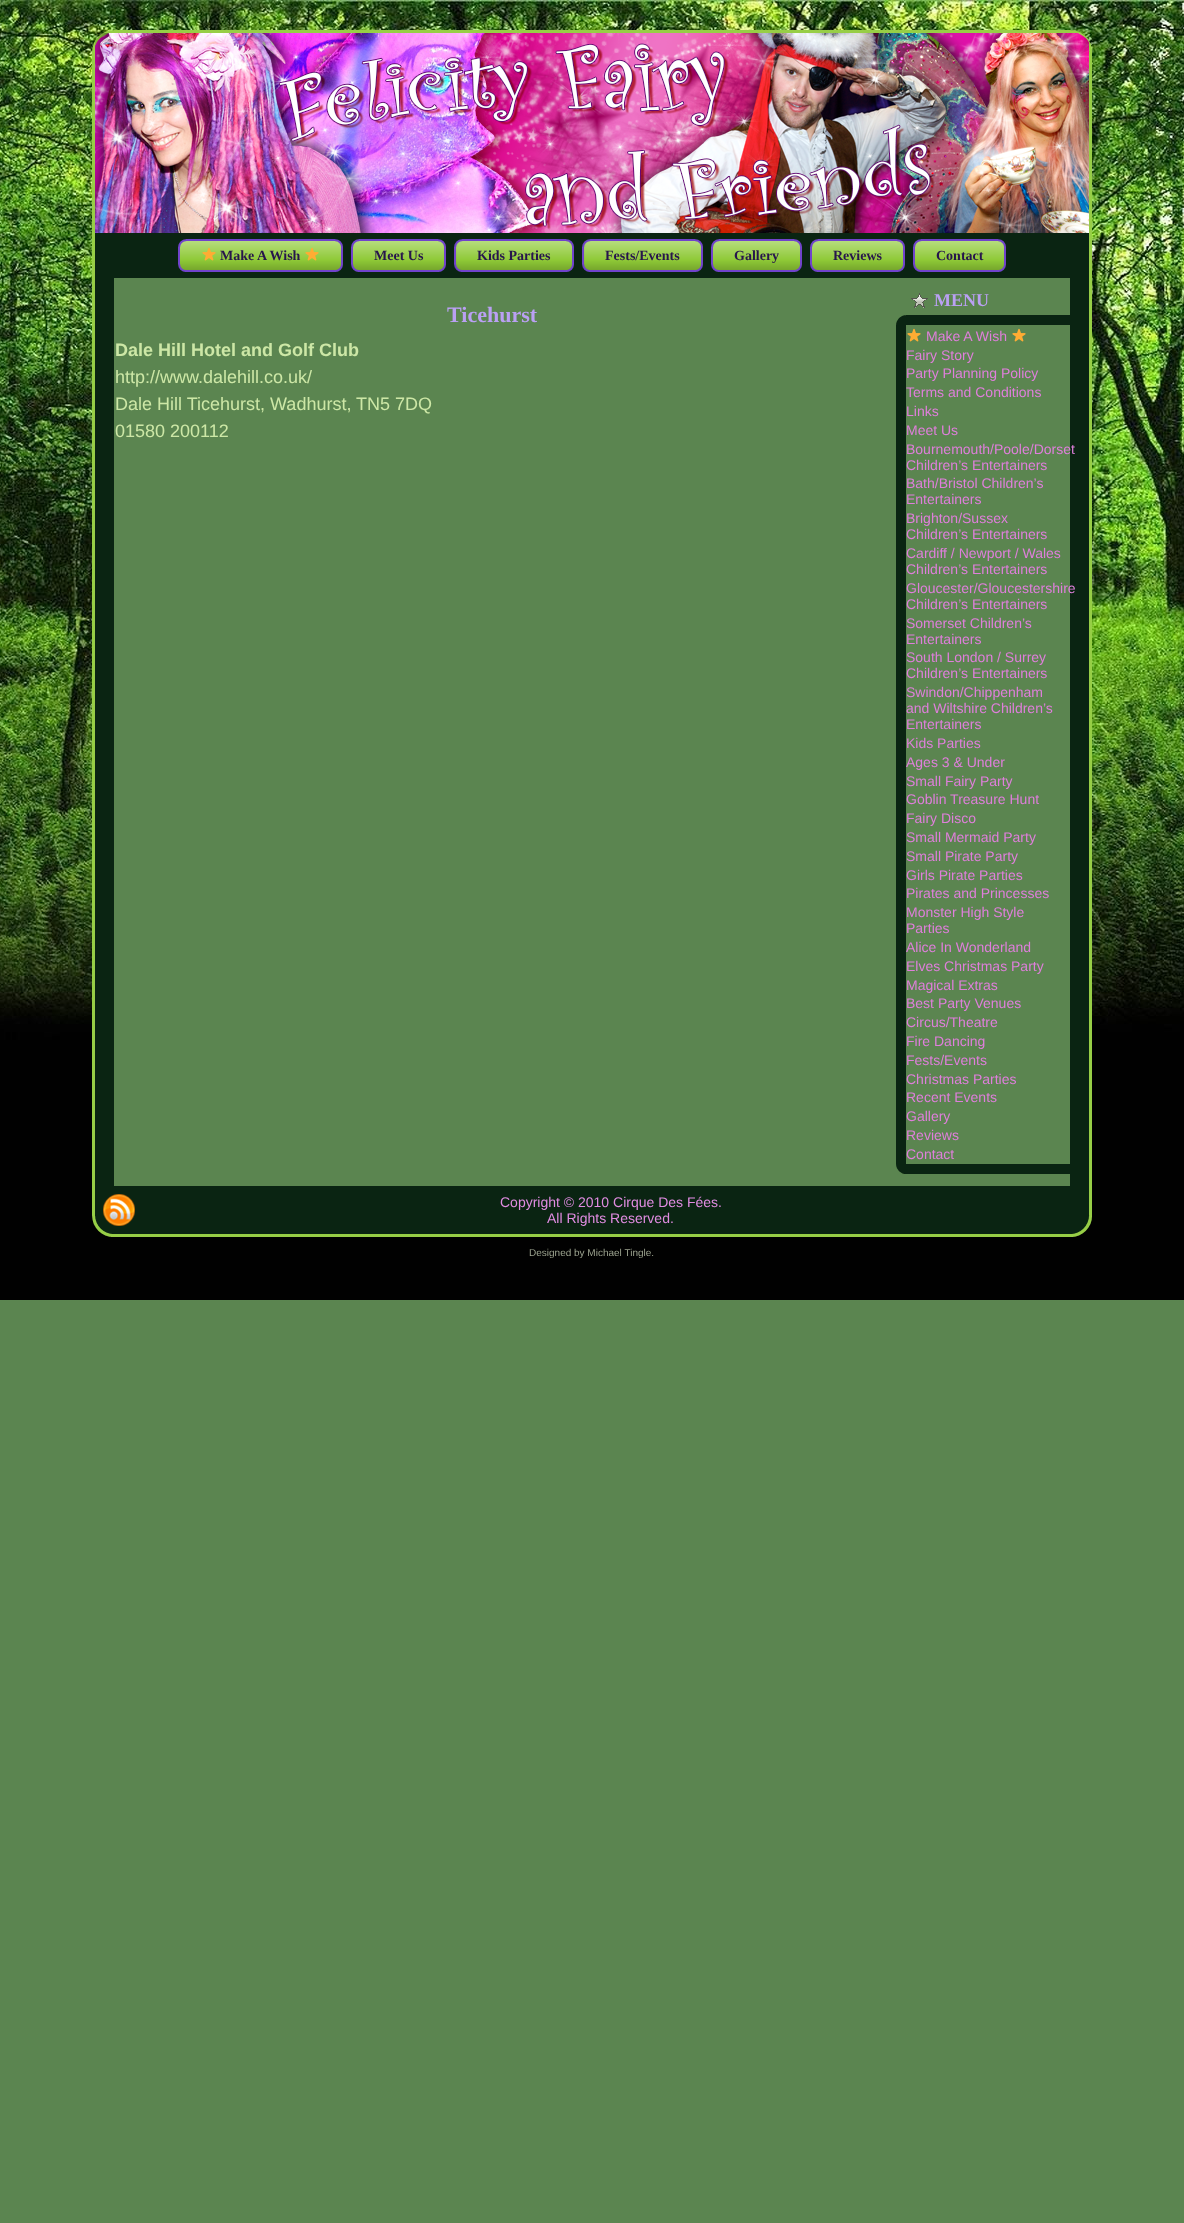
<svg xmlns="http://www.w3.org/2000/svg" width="1184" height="2223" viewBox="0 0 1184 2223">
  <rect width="100%" height="100%" fill="#5b8550"/>
  <image x="0" y="0" width="1184" height="1300" href="img1.png"/>
  <image x="92" y="30" width="22" height="22" href="img2.png"/>
  <rect x="114" y="30" width="956" height="3" fill="#97ce46"/>
  <image x="1070" y="30" width="22" height="22" href="img3.png"/>
  <image x="92" y="52" width="22" height="1163" href="img4.png"/>
  <image x="1070" y="52" width="22" height="1163" href="img20.png"/>
  <image x="95" y="33" width="994" height="200" href="img5.png"/>
  <rect x="114" y="233" width="956" height="45" fill="#0a2412"/>
  <image x="178" y="239" width="157" height="33" href="img6.png"/>
  <image x="335" y="239" width="8" height="33" href="img7.png"/>
  <image x="202" y="247" width="14" height="14" href="img8.png"/>
  <text x="220" y="260" font-family="Liberation Serif" font-size="14" font-weight="bold" fill="#27154c">Make A Wish</text>
  <image x="305" y="247" width="14" height="14" href="img8.png"/>
  <image x="351" y="239" width="87" height="33" href="img9.png"/>
  <image x="438" y="239" width="8" height="33" href="img7.png"/>
  <text x="374" y="260" font-family="Liberation Serif" font-size="14" font-weight="bold" fill="#27154c">Meet Us</text>
  <image x="454" y="239" width="112" height="33" href="img10.png"/>
  <image x="566" y="239" width="8" height="33" href="img7.png"/>
  <text x="477" y="260" font-family="Liberation Serif" font-size="14" font-weight="bold" fill="#27154c">Kids Parties</text>
  <image x="582" y="239" width="113" height="33" href="img11.png"/>
  <image x="695" y="239" width="8" height="33" href="img7.png"/>
  <text x="605" y="260" font-family="Liberation Serif" font-size="14" font-weight="bold" fill="#27154c">Fests/Events</text>
  <image x="711" y="239" width="83" height="33" href="img12.png"/>
  <image x="794" y="239" width="8" height="33" href="img7.png"/>
  <text x="734" y="260" font-family="Liberation Serif" font-size="14" font-weight="bold" fill="#27154c">Gallery</text>
  <image x="810" y="239" width="87" height="33" href="img9.png"/>
  <image x="897" y="239" width="8" height="33" href="img7.png"/>
  <text x="833" y="260" font-family="Liberation Serif" font-size="14" font-weight="bold" fill="#27154c">Reviews</text>
  <image x="913" y="239" width="85" height="33" href="img13.png"/>
  <image x="998" y="239" width="8" height="33" href="img7.png"/>
  <text x="936" y="260" font-family="Liberation Serif" font-size="14" font-weight="bold" fill="#27154c">Contact</text>
  <rect x="114" y="278" width="956" height="908" fill="#5b8550"/>
  <text x="447" y="322" font-family="Liberation Serif" font-size="22" font-weight="bold" fill="#baa0f3">Ticehurst</text>
  <text x="115" y="356" font-family="Liberation Sans" font-size="18" font-weight="bold" fill="#cde7a6">Dale Hill Hotel and Golf Club</text>
  <text x="115" y="383" font-family="Liberation Sans" font-size="18" fill="#cde7a6">http://www.dalehill.co.uk/</text>
  <text x="115" y="410" font-family="Liberation Sans" font-size="18" fill="#cde7a6">Dale Hill Ticehurst, Wadhurst, TN5 7DQ</text>
  <text x="115" y="437" font-family="Liberation Sans" font-size="18" fill="#cde7a6">01580 200112</text>
  <image x="911" y="293" width="17" height="15" href="img14.png"/>
  <text x="934" y="306" font-family="Liberation Serif" font-size="18" font-weight="bold" fill="#baa0f3">MENU</text>
  <image x="896" y="315" width="10" height="10" href="img15.png"/>
  <rect x="906" y="315" width="164" height="10" fill="#0a2412"/>
  <rect x="896" y="325" width="10" height="839" fill="#0a2412"/>
  <image x="907" y="328" width="14" height="14" href="img16.png"/>
  <text x="926" y="341" font-family="Liberation Sans" font-size="14" fill="#df7fdb">Make A Wish</text>
  <image x="1012" y="328" width="14" height="14" href="img16.png"/>
  <text x="906" y="360" font-family="Liberation Sans" font-size="14" fill="#df7fdb">Fairy Story</text>
  <text x="906" y="378" font-family="Liberation Sans" font-size="14" fill="#df7fdb">Party Planning Policy</text>
  <text x="906" y="397" font-family="Liberation Sans" font-size="14" fill="#df7fdb">Terms and Conditions</text>
  <text x="906" y="416" font-family="Liberation Sans" font-size="14" fill="#df7fdb">Links</text>
  <text x="906" y="435" font-family="Liberation Sans" font-size="14" fill="#df7fdb">Meet Us</text>
  <text x="906" y="454" font-family="Liberation Sans" font-size="14" fill="#df7fdb">Bournemouth/Poole/Dorset</text>
  <text x="906" y="470" font-family="Liberation Sans" font-size="14" fill="#df7fdb">Children’s Entertainers</text>
  <text x="906" y="488" font-family="Liberation Sans" font-size="14" fill="#df7fdb">Bath/Bristol Children’s</text>
  <text x="906" y="504" font-family="Liberation Sans" font-size="14" fill="#df7fdb">Entertainers</text>
  <text x="906" y="523" font-family="Liberation Sans" font-size="14" fill="#df7fdb">Brighton/Sussex</text>
  <text x="906" y="539" font-family="Liberation Sans" font-size="14" fill="#df7fdb">Children’s Entertainers</text>
  <text x="906" y="558" font-family="Liberation Sans" font-size="14" fill="#df7fdb">Cardiff / Newport / Wales</text>
  <text x="906" y="574" font-family="Liberation Sans" font-size="14" fill="#df7fdb">Children’s Entertainers</text>
  <text x="906" y="593" font-family="Liberation Sans" font-size="14" fill="#df7fdb">Gloucester/Gloucestershire</text>
  <text x="906" y="609" font-family="Liberation Sans" font-size="14" fill="#df7fdb">Children’s Entertainers</text>
  <text x="906" y="628" font-family="Liberation Sans" font-size="14" fill="#df7fdb">Somerset Children’s</text>
  <text x="906" y="644" font-family="Liberation Sans" font-size="14" fill="#df7fdb">Entertainers</text>
  <text x="906" y="662" font-family="Liberation Sans" font-size="14" fill="#df7fdb">South London / Surrey</text>
  <text x="906" y="678" font-family="Liberation Sans" font-size="14" fill="#df7fdb">Children’s Entertainers</text>
  <text x="906" y="697" font-family="Liberation Sans" font-size="14" fill="#df7fdb">Swindon/Chippenham</text>
  <text x="906" y="713" font-family="Liberation Sans" font-size="14" fill="#df7fdb">and Wiltshire Children’s</text>
  <text x="906" y="729" font-family="Liberation Sans" font-size="14" fill="#df7fdb">Entertainers</text>
  <text x="906" y="748" font-family="Liberation Sans" font-size="14" fill="#df7fdb">Kids Parties</text>
  <text x="906" y="767" font-family="Liberation Sans" font-size="14" fill="#df7fdb">Ages 3 &amp; Under</text>
  <text x="906" y="786" font-family="Liberation Sans" font-size="14" fill="#df7fdb">Small Fairy Party</text>
  <text x="906" y="804" font-family="Liberation Sans" font-size="14" fill="#df7fdb">Goblin Treasure Hunt</text>
  <text x="906" y="823" font-family="Liberation Sans" font-size="14" fill="#df7fdb">Fairy Disco</text>
  <text x="906" y="842" font-family="Liberation Sans" font-size="14" fill="#df7fdb">Small Mermaid Party</text>
  <text x="906" y="861" font-family="Liberation Sans" font-size="14" fill="#df7fdb">Small Pirate Party</text>
  <text x="906" y="880" font-family="Liberation Sans" font-size="14" fill="#df7fdb">Girls Pirate Parties</text>
  <text x="906" y="898" font-family="Liberation Sans" font-size="14" fill="#df7fdb">Pirates and Princesses</text>
  <text x="906" y="917" font-family="Liberation Sans" font-size="14" fill="#df7fdb">Monster High Style</text>
  <text x="906" y="933" font-family="Liberation Sans" font-size="14" fill="#df7fdb">Parties</text>
  <text x="906" y="952" font-family="Liberation Sans" font-size="14" fill="#df7fdb">Alice In Wonderland</text>
  <text x="906" y="971" font-family="Liberation Sans" font-size="14" fill="#df7fdb">Elves Christmas Party</text>
  <text x="906" y="990" font-family="Liberation Sans" font-size="14" fill="#df7fdb">Magical Extras</text>
  <text x="906" y="1008" font-family="Liberation Sans" font-size="14" fill="#df7fdb">Best Party Venues</text>
  <text x="906" y="1027" font-family="Liberation Sans" font-size="14" fill="#df7fdb">Circus/Theatre</text>
  <text x="906" y="1046" font-family="Liberation Sans" font-size="14" fill="#df7fdb">Fire Dancing</text>
  <text x="906" y="1065" font-family="Liberation Sans" font-size="14" fill="#df7fdb">Fests/Events</text>
  <text x="906" y="1084" font-family="Liberation Sans" font-size="14" fill="#df7fdb">Christmas Parties</text>
  <text x="906" y="1102" font-family="Liberation Sans" font-size="14" fill="#df7fdb">Recent Events</text>
  <text x="906" y="1121" font-family="Liberation Sans" font-size="14" fill="#df7fdb">Gallery</text>
  <text x="906" y="1140" font-family="Liberation Sans" font-size="14" fill="#df7fdb">Reviews</text>
  <text x="906" y="1159" font-family="Liberation Sans" font-size="14" fill="#df7fdb">Contact</text>
  <image x="896" y="1164" width="10" height="10" href="img17.png"/>
  <rect x="906" y="1164" width="164" height="10" fill="#0a2412"/>
  <image x="92" y="1215" width="22" height="22" href="img21.png"/>
  <image x="1070" y="1215" width="22" height="22" href="img22.png"/>
  <image x="95" y="1186" width="994" height="48" href="img18.png"/>
  <image x="103" y="1194" width="32" height="32" href="img19.png"/>
  <text x="500" y="1207" font-family="Liberation Sans" font-size="14" fill="#e08ce1">Copyright © 2010 Cirque Des Fées.</text>
  <text x="547" y="1223" font-family="Liberation Sans" font-size="14" fill="#e08ce1">All Rights Reserved.</text>
  <rect x="114" y="1234" width="956" height="3" fill="#97ce46"/>
  <text x="529" y="1256" font-family="Liberation Sans" font-size="10" fill="#9ca38f">Designed by Michael Tingle.</text>
</svg>
